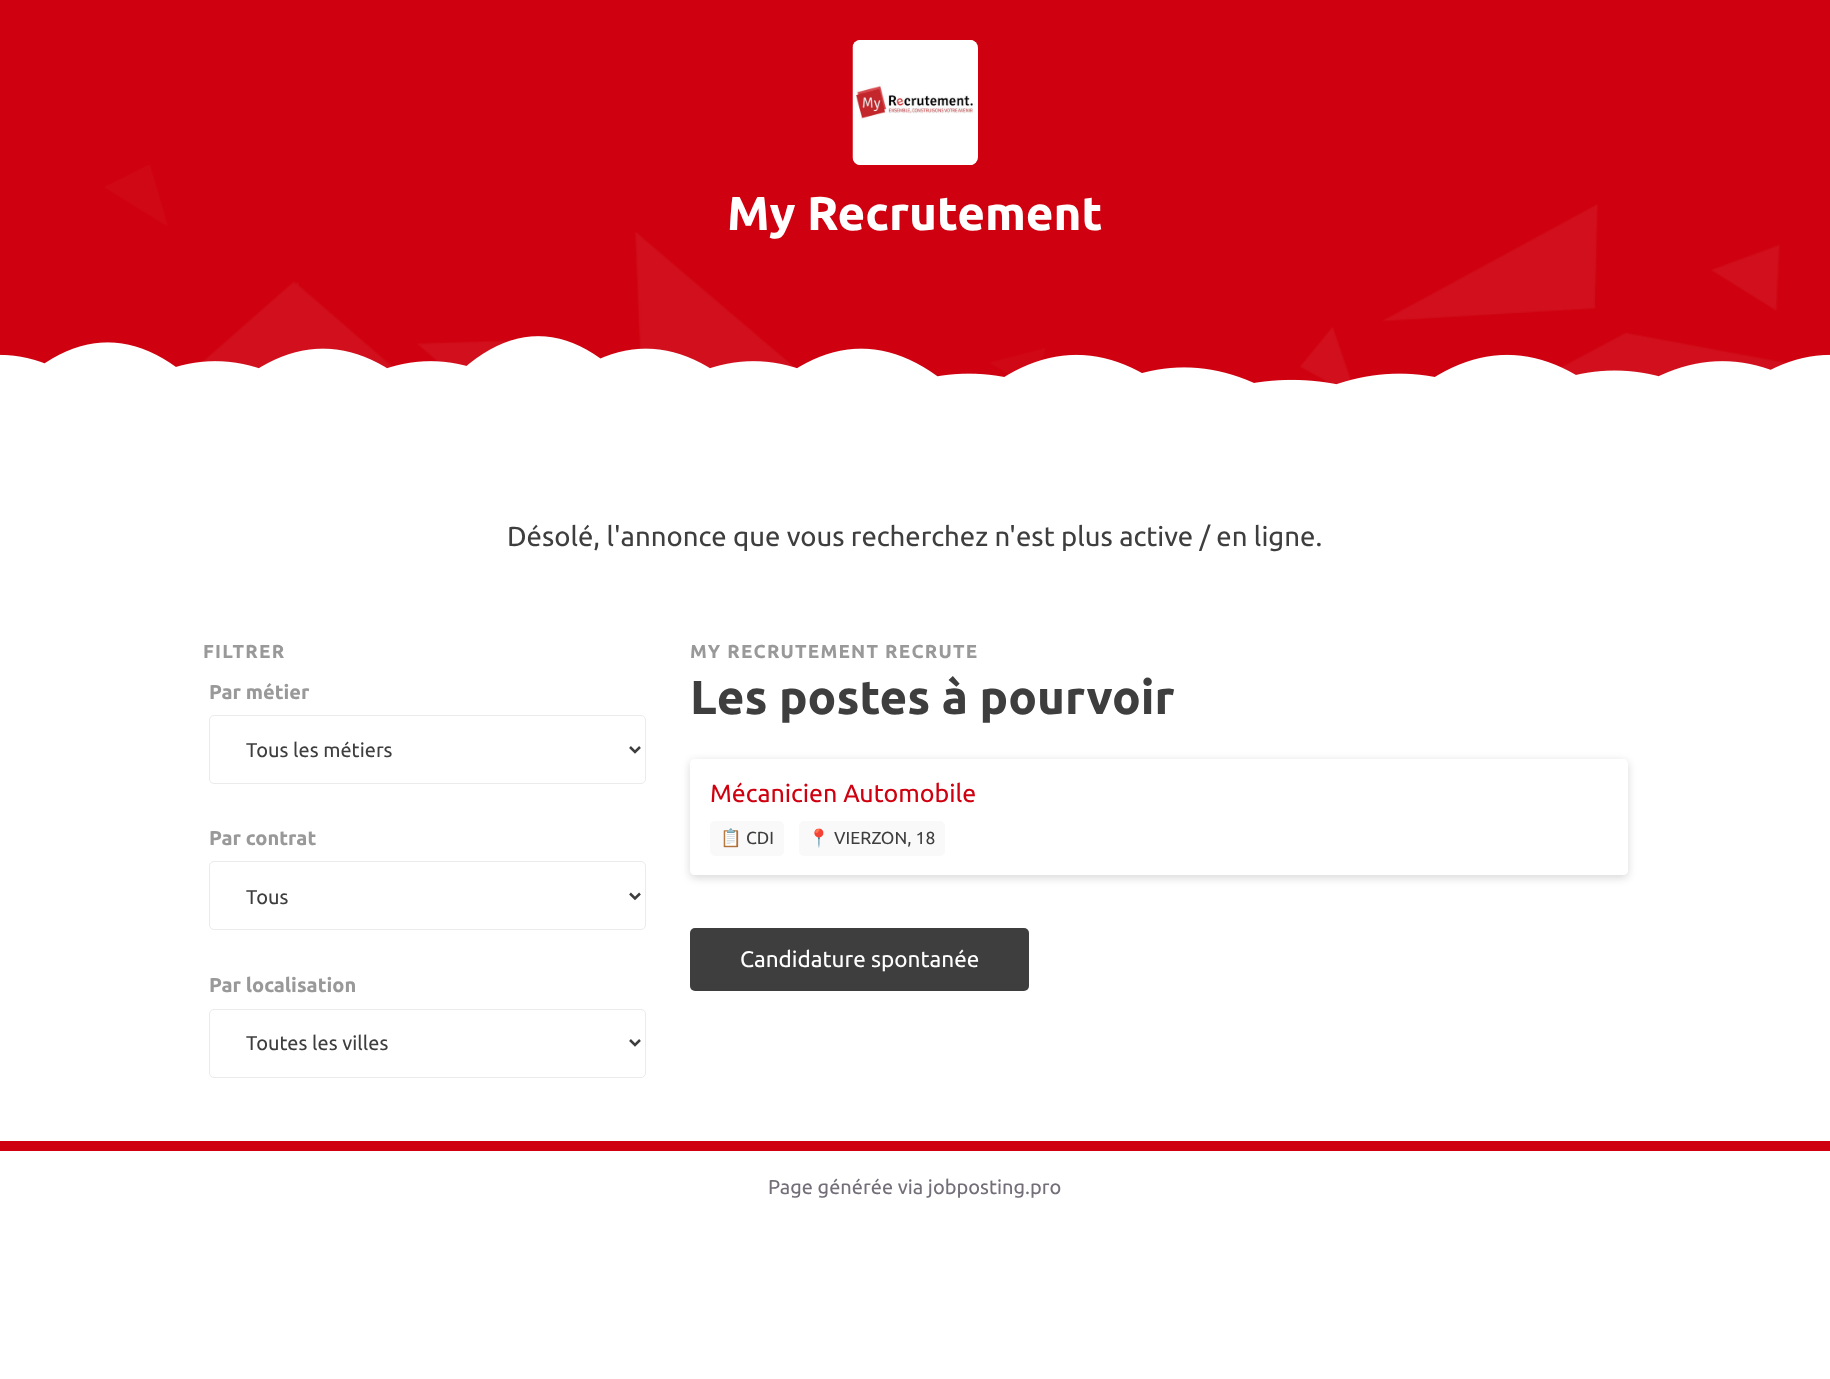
<svg xmlns="http://www.w3.org/2000/svg" width="1830" height="1379" viewBox="0 0 1830 1379">
  <defs>
    <clipPath id="clip1"><path d="M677 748H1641V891H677ZM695 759H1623C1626 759 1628 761 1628 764V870C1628 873 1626 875 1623 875H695C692 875 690 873 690 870V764C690 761 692 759 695 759Z" clip-rule="evenodd"/></clipPath>
    <filter id="blur1" x="-50%" y="-200%" width="200%" height="500%"><feGaussianBlur stdDeviation="4"/></filter>
  </defs>
  <rect width="100%" height="100%" fill="#ffffff"/>
  <rect x="0" y="0" width="1830" height="385" fill="#cf000f"/>
  <image x="105" y="165" width="1682" height="220" href="img1.png"/>
  <rect x="853" y="40" width="125" height="125" rx="8" fill="#ffffff"/>
  <image x="852" y="40" width="126" height="125" href="img2.png"/>
  <text x="727" y="230" font-family="Ubuntu" font-size="47.5" font-weight="bold" fill="#ffffff">My Recrutement</text>
  <image x="0" y="336" width="1830" height="59" href="img3.png"/>
  <text x="507" y="546" font-family="Ubuntu" font-size="27.5" fill="#3e3e3e">Désolé, l'annonce que vous recherchez n'est plus active / en ligne.</text>
  <text x="203" y="658" font-family="Ubuntu" font-size="18.75" font-weight="bold" letter-spacing="1.25" fill="#999999">FILTRER</text>
  <text x="209" y="699" font-family="Ubuntu" font-size="20" font-weight="bold" fill="#999999">Par métier</text>
  <rect x="209.5" y="715.5" width="436" height="68" rx="4.5" fill="none" stroke="#ebebeb"/>
  <path d="M630 747L635 752L640 747" fill="none" stroke="#3e3e3e" stroke-width="2.5"/>
  <text x="246" y="757" font-family="Ubuntu" font-size="20" fill="#3e3e3e">Tous les métiers</text>
  <text x="209" y="845" font-family="Ubuntu" font-size="20" font-weight="bold" fill="#999999">Par contrat</text>
  <rect x="209.5" y="861.5" width="436" height="68" rx="4.5" fill="none" stroke="#ebebeb"/>
  <path d="M630 893.5L635 898.5L640 893.5" fill="none" stroke="#3e3e3e" stroke-width="2.5"/>
  <text x="246" y="904" font-family="Ubuntu" font-size="20" fill="#3e3e3e">Tous</text>
  <text x="209" y="992" font-family="Ubuntu" font-size="20" font-weight="bold" fill="#999999">Par localisation</text>
  <rect x="209.5" y="1009.5" width="436" height="68" rx="4.5" fill="none" stroke="#ebebeb"/>
  <path d="M630 1040L635 1045L640 1040" fill="none" stroke="#3e3e3e" stroke-width="2.5"/>
  <text x="246" y="1050" font-family="Ubuntu" font-size="20" fill="#3e3e3e">Toutes les villes</text>
  <text x="690" y="658" font-family="Ubuntu" font-size="18.75" font-weight="bold" letter-spacing="1.25" fill="#999999">MY RECRUTEMENT RECRUTE</text>
  <text x="690" y="714" font-family="Ubuntu" font-size="47.5" font-weight="bold" fill="#3e3e3e">Les postes à pourvoir</text>
  <g clip-path="url(#clip1)">
    <rect x="690" y="761" width="938" height="117" rx="5" fill="#000000" fill-opacity="0.15" filter="url(#blur1)"/>
  </g>
  <text x="710" y="802" font-family="Ubuntu" font-size="25" fill="#cf000f">Mécanicien Automobile</text>
  <rect x="710" y="821" width="74" height="35" rx="5" fill="#f9f9f9"/>
  <text x="720" y="844" font-family="Noto Color Emoji" font-size="17.5" fill="#3e3e3e">📋</text>
  <text x="746" y="844" font-family="Ubuntu" font-size="17.5" fill="#3e3e3e">CDI</text>
  <rect x="799" y="821" width="146" height="35" rx="5" fill="#f9f9f9"/>
  <text x="808" y="844" font-family="Noto Color Emoji" font-size="17.5" fill="#3e3e3e">📍</text>
  <text x="834" y="844" font-family="Ubuntu" font-size="17.5" fill="#3e3e3e">VIERZON, 18</text>
  <rect x="690" y="928" width="339" height="63" rx="5" fill="#3e3e3e"/>
  <text x="740" y="967" font-family="Ubuntu" font-size="22.5" fill="#ffffff">Candidature spontanée</text>
  <rect x="0" y="1141" width="1830" height="10" fill="#cf000f"/>
  <text x="768" y="1194" font-family="Ubuntu" font-size="20" fill="#736e78">Page générée via jobposting.pro</text>
</svg>
